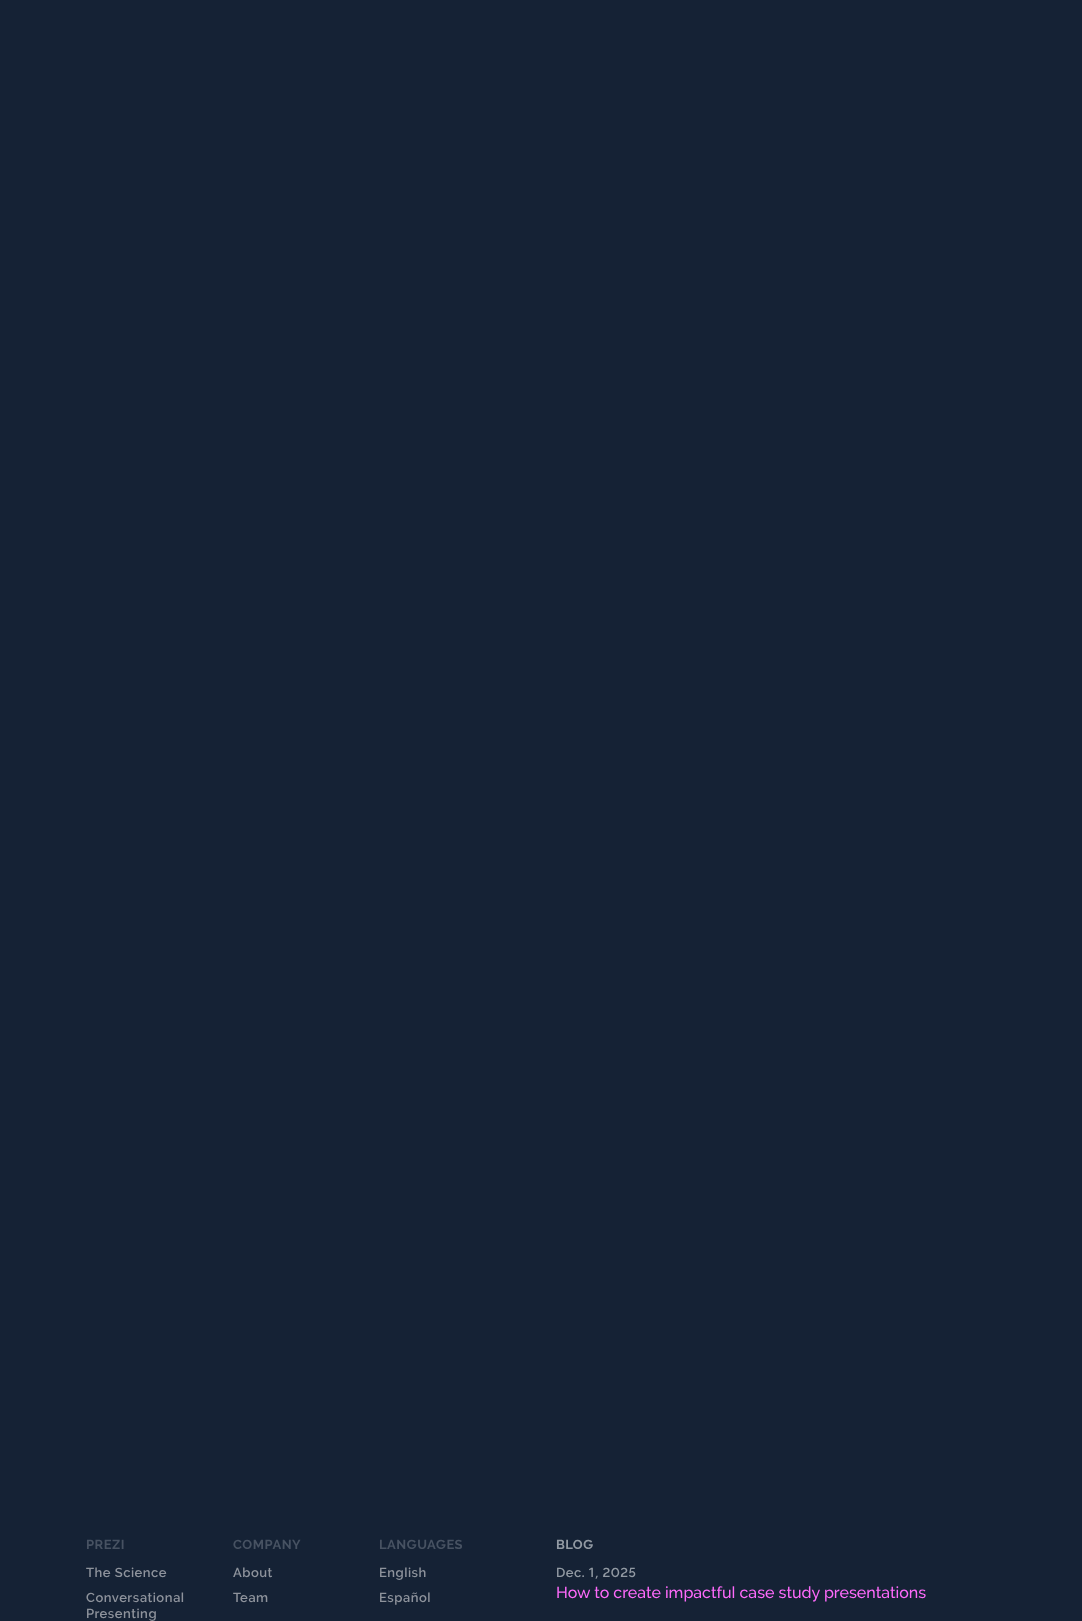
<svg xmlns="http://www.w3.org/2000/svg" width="1082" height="1621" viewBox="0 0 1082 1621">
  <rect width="100%" height="100%" fill="#152235"/>
  <text x="86" y="1549" font-family="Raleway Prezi" font-size="13" font-weight="bold" letter-spacing="0.5" fill="#475262">PREZI</text>
  <text x="86" y="1577" font-family="Raleway Prezi" font-size="13" font-weight="600" letter-spacing="0.5" fill="#8e939c">The Science</text>
  <text x="86" y="1602" font-family="Raleway Prezi" font-size="13" font-weight="600" letter-spacing="0.5" fill="#8e939c">Conversational</text>
  <text x="86" y="1618" font-family="Raleway Prezi" font-size="13" font-weight="600" letter-spacing="0.5" fill="#8e939c">Presenting</text>
  <text x="233" y="1549" font-family="Raleway Prezi" font-size="13" font-weight="bold" letter-spacing="0.5" fill="#475262">COMPANY</text>
  <text x="233" y="1577" font-family="Raleway Prezi" font-size="13" font-weight="600" letter-spacing="0.5" fill="#8e939c">About</text>
  <text x="233" y="1602" font-family="Raleway Prezi" font-size="13" font-weight="600" letter-spacing="0.5" fill="#8e939c">Team</text>
  <text x="379" y="1549" font-family="Raleway Prezi" font-size="13" font-weight="bold" letter-spacing="0.5" fill="#475262">LANGUAGES</text>
  <text x="379" y="1577" font-family="Raleway Prezi" font-size="13" font-weight="600" letter-spacing="0.5" fill="#8e939c">English</text>
  <text x="379" y="1602" font-family="Raleway Prezi" font-size="13" font-weight="600" letter-spacing="0.5" fill="#8e939c">Español</text>
  <text x="556" y="1549" font-family="Raleway Prezi" font-size="13" font-weight="bold" letter-spacing="0.5" fill="#929aa3">BLOG</text>
  <text x="556" y="1577" font-family="Raleway Prezi" font-size="13" font-weight="600" letter-spacing="0.5" fill="#929aa3">Dec. 1, 2025</text>
  <text x="556" y="1598" font-family="Raleway Prezi" font-size="16" font-weight="500" fill="#fd6afa">How to create impactful case study presentations</text>
</svg>
